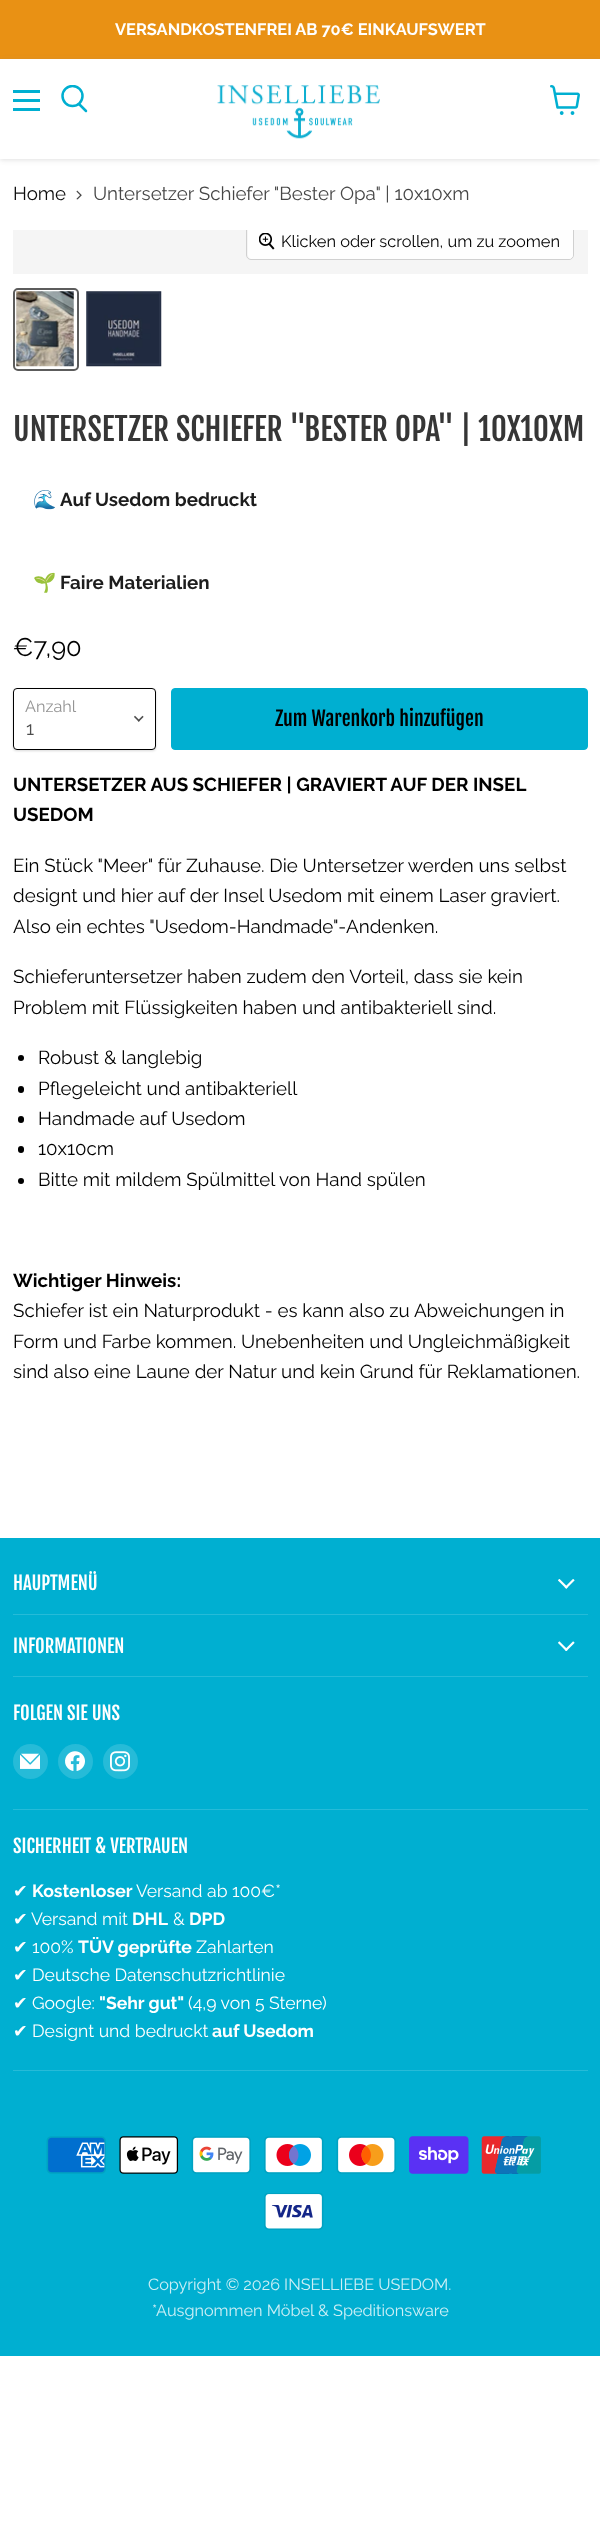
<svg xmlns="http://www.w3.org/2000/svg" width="600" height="2534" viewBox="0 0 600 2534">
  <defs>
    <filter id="blur1" x="-50%" y="-200%" width="200%" height="500%"><feGaussianBlur stdDeviation="2.5"/></filter>
    <clipPath id="clip1"><rect x="60" y="85" width="29" height="30"/></clipPath>
    <clipPath id="clip2"><rect x="13" y="230" width="575" height="44"/></clipPath>
    <filter id="blur2" x="-50%" y="-200%" width="200%" height="500%"><feGaussianBlur stdDeviation="1"/></filter>
  </defs>
  <rect width="100%" height="100%" fill="#ffffff"/>
  <rect x="0" y="0" width="600" height="59" fill="#e99114"/>
  <text x="115" y="35" font-family="Raleway" font-size="16.4" font-weight="bold" fill="#ffffff">VERSANDKOSTENFREI AB 70€ EINKAUFSWERT</text>
  <rect x="0" y="60" width="600" height="100" fill="#808080" fill-opacity="0.25" filter="url(#blur1)"/>
  <rect x="0" y="59" width="600" height="100" fill="#ffffff"/>
  <rect x="13" y="90" width="27" height="3" fill="#00afd1"/>
  <rect x="13" y="99" width="27" height="3" fill="#00afd1"/>
  <rect x="13" y="108" width="27" height="3" fill="#00afd1"/>
  <path d="M86 111L79.5 104.5" fill="none" stroke="#00afd1" stroke-width="2.5" stroke-linecap="round"/>
  <g clip-path="url(#clip1)">
    <circle cx="72.5" cy="96" r="10" fill="none" stroke="#00afd1" stroke-width="2.5"/>
  </g>
  <image x="217" y="84" width="163" height="55" href="img1.png"/>
  <image x="550" y="85" width="30" height="30" href="img2.png"/>
  <text x="13" y="200" font-family="Raleway" font-size="18.75" fill="#0d0d0d">Home</text>
  <image x="76" y="190" width="6" height="10" href="img3.png"/>
  <text x="93" y="200" font-family="Raleway" font-size="18.75" fill="#464646">Untersetzer Schiefer "Bester Opa" | 10x10xm</text>
  <rect x="13" y="230" width="575" height="44" fill="#f5f5f5"/>
  <g clip-path="url(#clip2)">
    <rect x="246.5" y="224.5" width="327" height="35" rx="4.5" fill="none" stroke="#d0d0d0"/>
  </g>
  <path d="M248 230H573V255C573 257 571 259 569 259H252C250 259 248 257 248 255Z" fill="#ffffff" fill-opacity="0.9"/>
  <image x="259" y="233" width="16" height="17" href="img4.png"/>
  <text x="281" y="247" font-family="Raleway" font-size="16.4" fill="#000000">Klicken oder scrollen, um zu zoomen</text>
  <rect x="14" y="289" width="64" height="81" rx="4" fill="none" stroke="#5c5c5c" stroke-width="2"/>
  <image x="16" y="291" width="58" height="76" href="img5.png"/>
  <image x="86" y="291" width="76" height="76" href="img6.png"/>
  <text x="13" y="441" font-family="Fjalla One" font-size="31.25" fill="#363636">UNTERSETZER SCHIEFER "BESTER OPA" | 10X10XM</text>
  <text x="33" y="506" font-family="Noto Color Emoji" font-size="18.75" font-weight="bold" fill="#1d1d1d">🌊</text>
  <text x="60" y="506" font-family="Raleway" font-size="18.75" font-weight="bold" fill="#1d1d1d">Auf Usedom bedruckt</text>
  <text x="33" y="589" font-family="Noto Color Emoji" font-size="18.75" font-weight="bold" fill="#1d1d1d">🌱</text>
  <text x="60" y="589" font-family="Raleway" font-size="18.75" font-weight="bold" fill="#1d1d1d">Faire Materialien</text>
  <text x="13" y="656" font-family="Raleway" font-size="25.5" fill="#000000">€7,90</text>
  <rect x="13" y="689" width="143" height="62" rx="4" fill="#000000" fill-opacity="0.15" filter="url(#blur2)"/>
  <rect x="13.5" y="688.5" width="142" height="61" rx="3.5" fill="#ffffff" stroke="#000000"/>
  <text x="25" y="712" font-family="Raleway" font-size="16.25" fill="#949494">Anzahl</text>
  <image x="134" y="715" width="10" height="7" href="img7.png"/>
  <text x="26" y="735" font-family="Raleway" font-size="18.75" fill="#4d4d4d">1</text>
  <rect x="171.5" y="688.5" width="416" height="61" rx="3.5" fill="#00afd1" stroke="#00afd1"/>
  <text x="275" y="726" font-family="Fjalla One" font-size="19.75" fill="#000000">Zum Warenkorb hinzufügen</text>
  <text x="13" y="791" font-family="Raleway" font-size="18.75" font-weight="bold" fill="#000000">UNTERSETZER AUS SCHIEFER | GRAVIERT AUF DER INSEL</text>
  <text x="13" y="821" font-family="Raleway" font-size="18.75" font-weight="bold" fill="#000000">USEDOM</text>
  <text x="13" y="872" font-family="Raleway" font-size="18.75" fill="#000000">Ein Stück "Meer" für Zuhause. Die Untersetzer werden uns selbst</text>
  <text x="13" y="902" font-family="Raleway" font-size="18.75" fill="#000000">designt und hier auf der Insel Usedom mit einem Laser graviert.</text>
  <text x="13" y="933" font-family="Raleway" font-size="18.75" fill="#000000">Also ein echtes "Usedom-Handmade"-Andenken.</text>
  <text x="13" y="983" font-family="Raleway" font-size="18.75" fill="#000000">Schieferuntersetzer haben zudem den Vorteil, dass sie kein</text>
  <text x="13" y="1014" font-family="Raleway" font-size="18.75" fill="#000000">Problem mit Flüssigkeiten haben und antibakteriell sind.</text>
  <circle cx="21" cy="1058" r="3" fill="#000000"/>
  <text x="38" y="1064" font-family="Raleway" font-size="18.75" fill="#000000">Robust &amp; langlebig</text>
  <rect x="18" y="1086" width="6" height="7" rx="3" fill="#000000"/>
  <text x="38" y="1095" font-family="Raleway" font-size="18.75" fill="#000000">Pflegeleicht und antibakteriell</text>
  <rect x="18" y="1116" width="6" height="7" rx="3" fill="#000000"/>
  <text x="38" y="1125" font-family="Raleway" font-size="18.75" fill="#000000">Handmade auf Usedom</text>
  <rect x="18" y="1146" width="6" height="7" rx="3" fill="#000000"/>
  <text x="38" y="1155" font-family="Raleway" font-size="18.75" fill="#000000">10x10cm</text>
  <circle cx="21" cy="1181" r="3" fill="#000000"/>
  <text x="38" y="1186" font-family="Raleway" font-size="18.75" fill="#000000">Bitte mit mildem Spülmittel von Hand spülen</text>
  <text x="13" y="1287" font-family="Raleway" font-size="18.75" font-weight="bold" fill="#000000">Wichtiger Hinweis:</text>
  <text x="13" y="1317" font-family="Raleway" font-size="18.75" fill="#000000">Schiefer ist ein Naturprodukt - es kann also zu Abweichungen in</text>
  <text x="13" y="1348" font-family="Raleway" font-size="18.75" fill="#000000">Form und Farbe kommen. Unebenheiten und Ungleichmäßigkeit</text>
  <text x="13" y="1378" font-family="Raleway" font-size="18.75" fill="#000000">sind also eine Laune der Natur und kein Grund für Reklamationen.</text>
  <rect x="0" y="1538" width="600" height="818" fill="#00afd1"/>
  <rect x="13" y="1614" width="575" height="1" fill="#26bbd8"/>
  <text x="13" y="1590" font-family="Fjalla One" font-size="18.5" fill="#ffffff">HAUPTMENÜ</text>
  <image x="558" y="1579" width="17" height="10" href="img8.png"/>
  <rect x="13" y="1676" width="575" height="1" fill="#26bbd8"/>
  <text x="13" y="1653" font-family="Fjalla One" font-size="18.5" fill="#ffffff">INFORMATIONEN</text>
  <image x="558" y="1641" width="17" height="10" href="img9.png"/>
  <rect x="13" y="1809" width="575" height="1" fill="#26bbd8"/>
  <text x="13" y="1720" font-family="Fjalla One" font-size="18.5" fill="#ffffff">FOLGEN SIE UNS</text>
  <circle cx="30.5" cy="1761.5" r="17.5" fill="#26bbd8"/>
  <image x="20" y="1753" width="20" height="16" href="img10.png"/>
  <circle cx="75.5" cy="1761.5" r="17.5" fill="#26bbd8"/>
  <image x="65" y="1751" width="20" height="20" href="img11.png"/>
  <circle cx="120.5" cy="1761.5" r="17.5" fill="#26bbd8"/>
  <image x="110" y="1751" width="20" height="21" href="img12.png"/>
  <rect x="13" y="2070" width="575" height="1" fill="#26bbd8"/>
  <text x="13" y="1853" font-family="Fjalla One" font-size="18.5" fill="#ffffff">SICHERHEIT &amp; VERTRAUEN</text>
  <text x="13" y="1897" font-family="DejaVu Sans" font-size="17.6" fill="#ffffff">✔</text>
  <text x="32" y="1897" font-family="Raleway" font-size="17.6" font-weight="bold" fill="#ffffff">Kostenloser</text>
  <text x="136" y="1897" font-family="Raleway" font-size="17.6" fill="#ffffff">Versand ab 100€*</text>
  <text x="13" y="1925" font-family="DejaVu Sans" font-size="17.6" fill="#ffffff">✔</text>
  <text x="31" y="1925" font-family="Raleway" font-size="17.6" fill="#ffffff">Versand mit</text>
  <text x="132" y="1925" font-family="Raleway" font-size="17.6" font-weight="bold" fill="#ffffff">DHL</text>
  <text x="173" y="1925" font-family="Raleway" font-size="17.6" fill="#ffffff">&amp;</text>
  <text x="189" y="1925" font-family="Raleway" font-size="17.6" font-weight="bold" fill="#ffffff">DPD</text>
  <text x="13" y="1953" font-family="DejaVu Sans" font-size="17.6" fill="#ffffff">✔</text>
  <text x="32" y="1953" font-family="Raleway" font-size="17.6" fill="#ffffff">100%</text>
  <text x="78" y="1953" font-family="Raleway" font-size="17.6" font-weight="bold" fill="#ffffff">TÜV geprüfte</text>
  <text x="196" y="1953" font-family="Raleway" font-size="17.6" fill="#ffffff">Zahlarten</text>
  <text x="13" y="1981" font-family="DejaVu Sans" font-size="17.6" fill="#ffffff">✔</text>
  <text x="32" y="1981" font-family="Raleway" font-size="17.6" fill="#ffffff">Deutsche Datenschutzrichtlinie</text>
  <text x="13" y="2009" font-family="DejaVu Sans" font-size="17.6" fill="#ffffff">✔</text>
  <text x="32" y="2009" font-family="Raleway" font-size="17.6" fill="#ffffff">Google:</text>
  <text x="99" y="2009" font-family="Raleway" font-size="17.6" font-weight="bold" fill="#ffffff">"Sehr gut"</text>
  <text x="188" y="2009" font-family="Raleway" font-size="17.6" fill="#ffffff">(4,9 von 5 Sterne)</text>
  <text x="13" y="2037" font-family="DejaVu Sans" font-size="17.6" fill="#ffffff">✔</text>
  <text x="32" y="2037" font-family="Raleway" font-size="17.6" fill="#ffffff">Designt und bedruckt</text>
  <text x="212" y="2037" font-family="Raleway" font-size="17.6" font-weight="bold" fill="#ffffff">auf Usedom</text>
  <image x="46" y="2136" width="60" height="38" href="img13.png"/>
  <image x="119" y="2136" width="60" height="38" href="img14.png"/>
  <image x="191" y="2136" width="60" height="38" href="img15.png"/>
  <image x="264" y="2136" width="60" height="38" href="img16.png"/>
  <image x="336" y="2136" width="60" height="38" href="img17.png"/>
  <image x="409" y="2136" width="60" height="38" href="img18.png"/>
  <image x="481" y="2136" width="60" height="38" href="img19.png"/>
  <image x="264" y="2193" width="60" height="37" href="img20.png"/>
  <text x="148" y="2290" font-family="Raleway" font-size="16.25" fill="#cceff6">Copyright © 2026 INSELLIEBE USEDOM.</text>
  <text x="152" y="2316" font-family="Raleway" font-size="16.25" fill="#cceff6">*Ausgnommen Möbel &amp; Speditionsware</text>
</svg>
